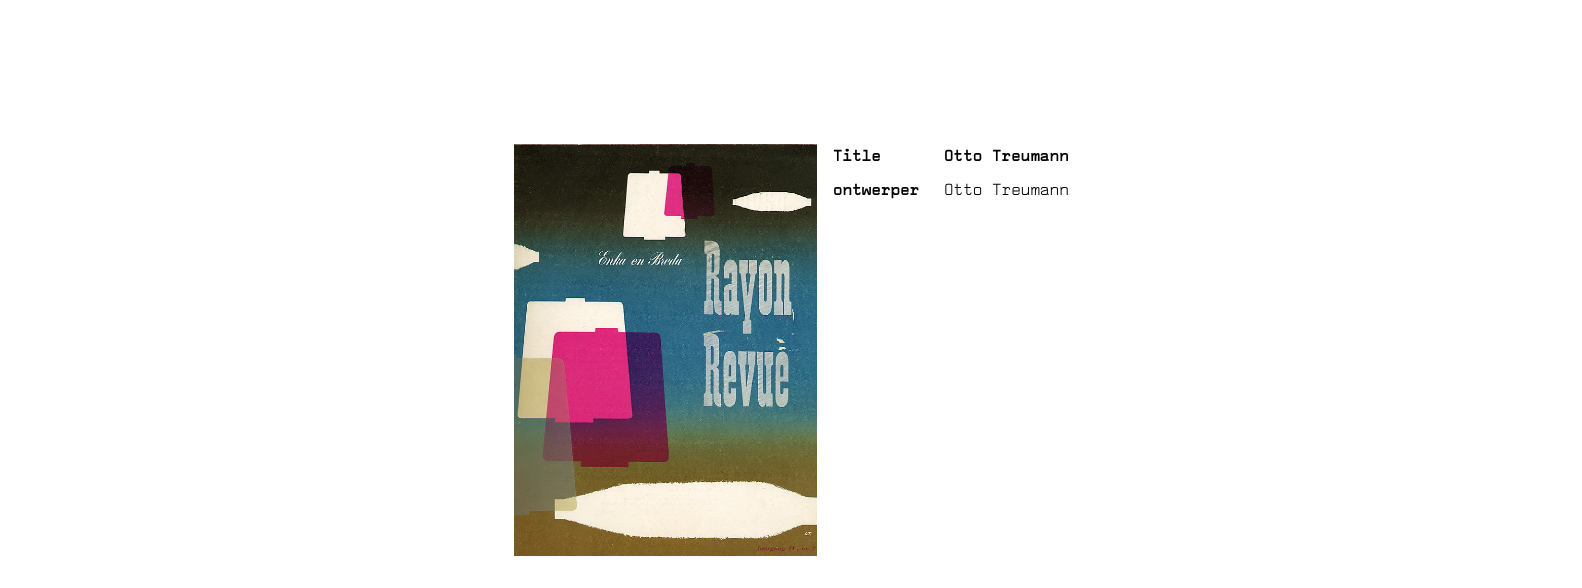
<svg xmlns="http://www.w3.org/2000/svg" width="1582" height="588" viewBox="0 0 1582 588">
  <rect width="100%" height="100%" fill="#ffffff"/>
  <image x="514" y="144" width="303" height="412" href="img1.png"/>
  <text x="833" y="161" font-family="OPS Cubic" font-size="16" font-weight="bold" fill="#000000">Title</text>
  <text x="944" y="161" font-family="OPS Cubic" font-size="16" font-weight="bold" fill="#000000">Otto Treumann</text>
  <text x="833" y="195" font-family="OPS Cubic" font-size="16" font-weight="bold" fill="#000000">ontwerper</text>
  <text x="944" y="195" font-family="OPS Cubic" font-size="16" fill="#000000">Otto Treumann</text>
</svg>
